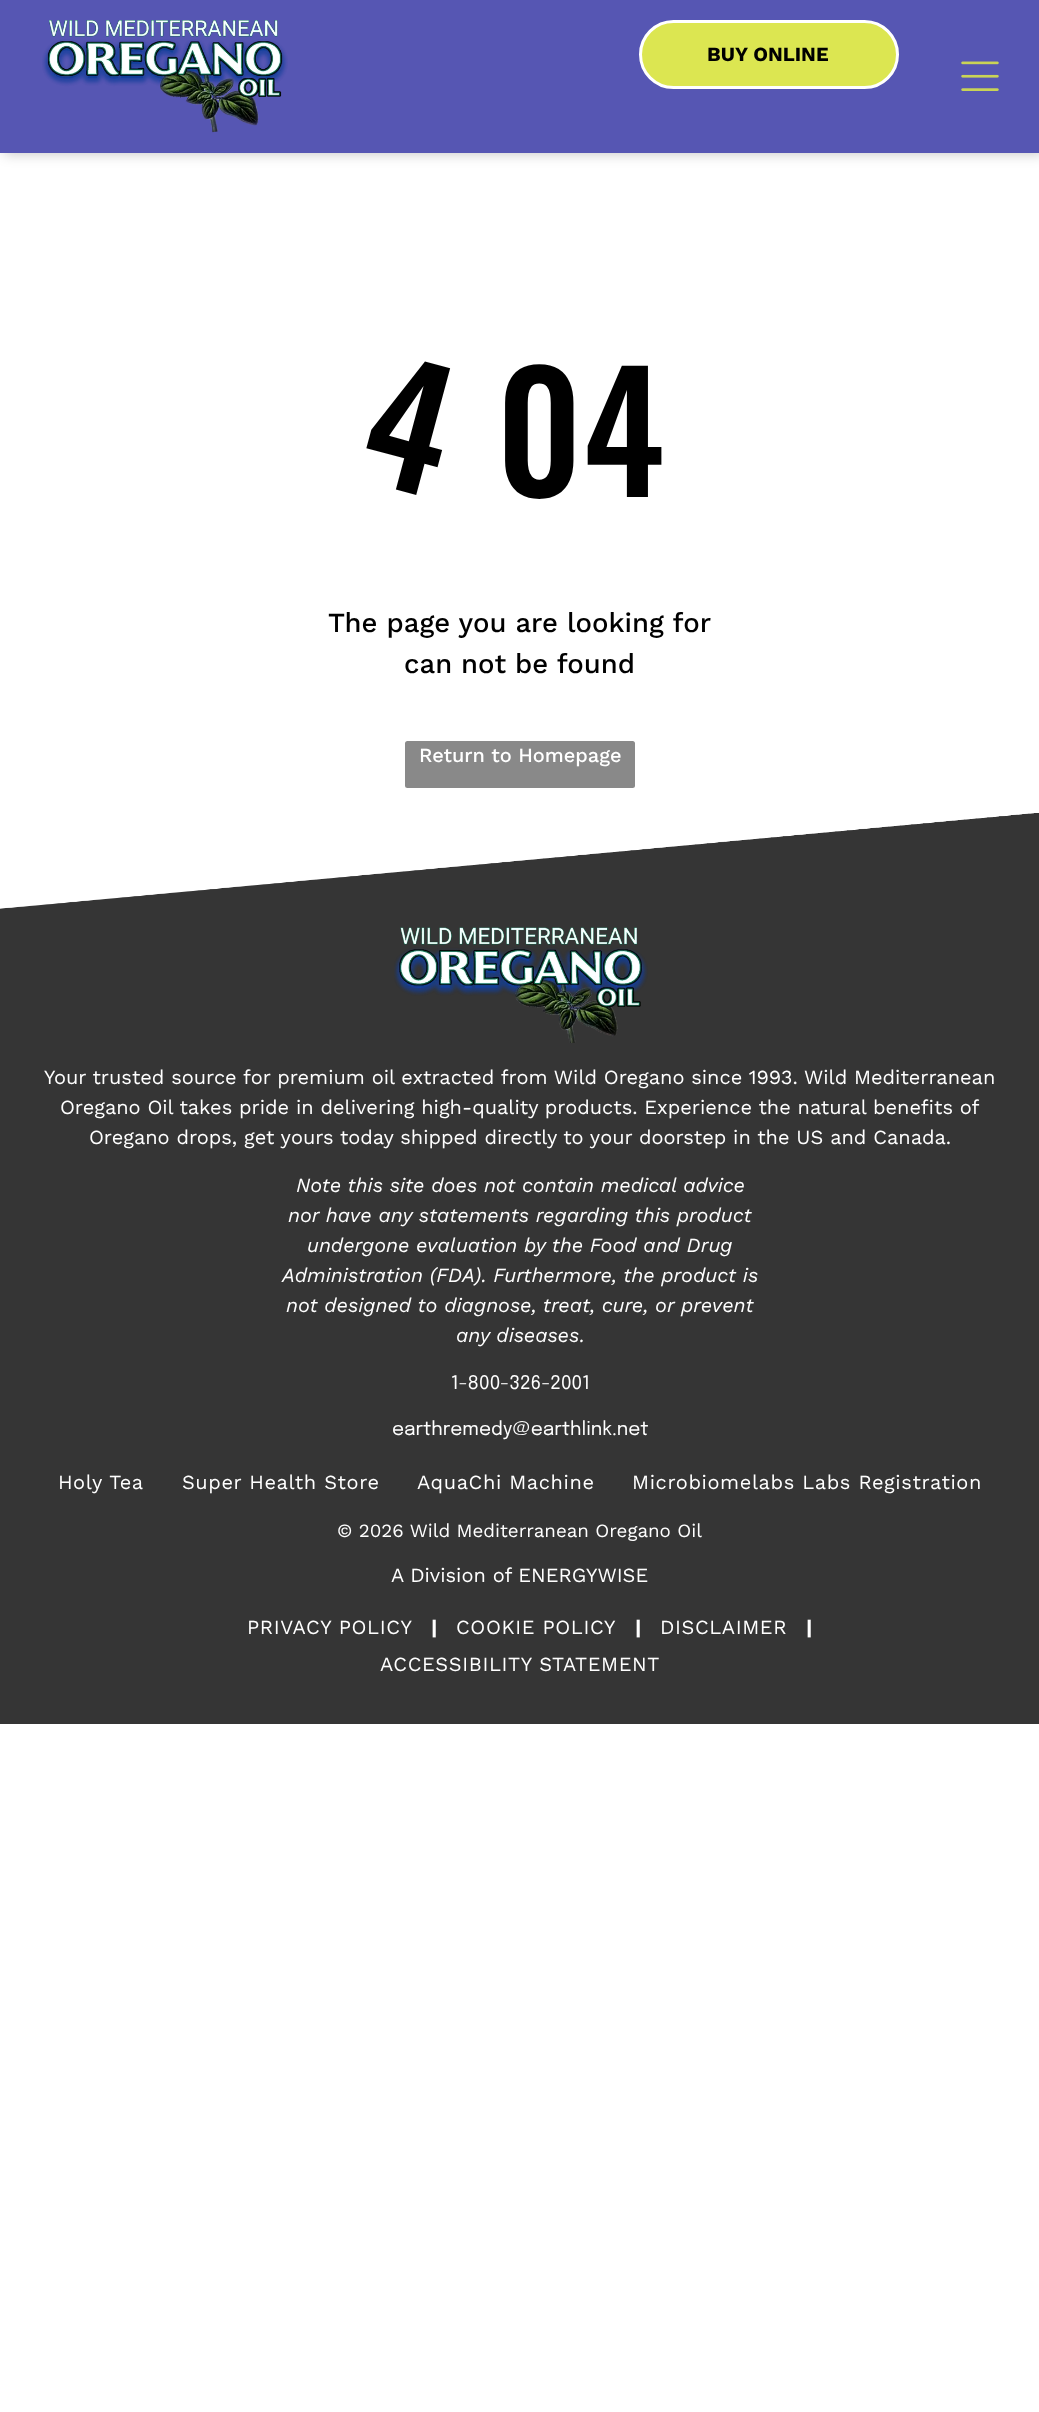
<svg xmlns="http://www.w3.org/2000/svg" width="1039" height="2412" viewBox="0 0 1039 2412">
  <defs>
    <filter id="blur1" x="-50%" y="-200%" width="200%" height="500%"><feGaussianBlur stdDeviation="7"/></filter>
  </defs>
  <rect width="100%" height="100%" fill="#ffffff"/>
  <rect x="4" y="0" width="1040" height="153" fill="#000000" fill-opacity="0.25" filter="url(#blur1)"/>
  <rect x="0" y="0" width="1039" height="153" fill="#5656b3"/>
  <image x="42" y="20" width="246" height="113" href="img1.png"/>
  <rect x="640.5" y="21.5" width="257" height="66" rx="33" fill="#dce651" stroke="#ffffff" stroke-width="3"/>
  <text x="707" y="61" font-family="Work Sans" font-size="20" font-weight="bold" fill="#000000">BUY ONLINE</text>
  <image x="961" y="61" width="38" height="30" href="img2.png"/>
  <text x="353" y="478" transform="rotate(15 353 478)" font-family="Oswald" font-size="162" font-weight="500" fill="#000000">4</text>
  <text x="496" y="497" font-family="Oswald" font-size="162" font-weight="500" fill="#000000">04</text>
  <text x="328" y="632" font-family="Work Sans" font-size="27.5" font-weight="500" fill="#000000">The page you are looking for</text>
  <text x="404" y="673" font-family="Work Sans" font-size="27.5" font-weight="500" fill="#000000">can not be found</text>
  <rect x="405" y="741" width="230" height="47" rx="2.5" fill="#898989"/>
  <text x="419" y="762" font-family="Work Sans" font-size="20" font-weight="500" fill="#ffffff">Return to Homepage</text>
  <rect x="0" y="813" width="1039" height="911" fill="#353535"/>
  <image x="0" y="813" width="1034" height="96" href="img3.png"/>
  <image x="394" y="927" width="254" height="116" href="img4.png"/>
  <text x="44" y="1084" font-family="Work Sans" font-size="20" fill="#ffffff">Your trusted source for premium oil extracted from Wild Oregano since 1993. Wild Mediterranean</text>
  <text x="60" y="1114" font-family="Work Sans" font-size="20" fill="#ffffff">Oregano Oil takes pride in delivering high-quality products. Experience the natural benefits of</text>
  <text x="89" y="1144" font-family="Work Sans" font-size="20" fill="#ffffff">Oregano drops, get yours today shipped directly to your doorstep in the US and Canada.</text>
  <text x="296" y="1192" font-family="Work Sans" font-size="20" font-style="italic" fill="#ffffff">Note this site does not contain medical advice</text>
  <text x="288" y="1222" font-family="Work Sans" font-size="20" font-style="italic" fill="#ffffff">nor have any statements regarding this product</text>
  <text x="307" y="1252" font-family="Work Sans" font-size="20" font-style="italic" fill="#ffffff">undergone evaluation by the Food and Drug</text>
  <text x="282" y="1282" font-family="Work Sans" font-size="20" font-style="italic" fill="#ffffff">Administration (FDA). Furthermore, the product is</text>
  <text x="286" y="1312" font-family="Work Sans" font-size="20" font-style="italic" fill="#ffffff">not designed to diagnose, treat, cure, or prevent</text>
  <text x="456" y="1342" font-family="Work Sans" font-size="20" font-style="italic" fill="#ffffff">any diseases.</text>
  <text x="451" y="1389" font-family="Epilogue" font-size="18.75" fill="#ffffff">1-800-326-2001</text>
  <text x="392" y="1435" font-family="Epilogue" font-size="18.75" fill="#ffffff">earthremedy@earthlink.net</text>
  <text x="58" y="1489" font-family="Work Sans" font-size="20" letter-spacing="0.6" fill="#ffffff">Holy Tea</text>
  <text x="182" y="1489" font-family="Work Sans" font-size="20" letter-spacing="0.6" fill="#ffffff">Super Health Store</text>
  <text x="417" y="1489" font-family="Work Sans" font-size="20" letter-spacing="0.6" fill="#ffffff">AquaChi Machine</text>
  <text x="632" y="1489" font-family="Work Sans" font-size="20" letter-spacing="0.6" fill="#ffffff">Microbiomelabs Labs Registration</text>
  <text x="337" y="1537" font-family="Work Sans" font-size="18.75" fill="#ffffff">© 2026 Wild Mediterranean Oregano Oil</text>
  <text x="391" y="1582" font-family="Work Sans" font-size="20" fill="#ffffff">A Division of ENERGYWISE</text>
  <text x="247" y="1634" font-family="Work Sans" font-size="20" letter-spacing="0.6" fill="#ffffff">PRIVACY POLICY</text>
  <text x="431" y="1634" font-family="Work Sans" font-size="20" font-weight="bold" fill="#ffffff">|</text>
  <text x="456" y="1634" font-family="Work Sans" font-size="20" letter-spacing="0.6" fill="#ffffff">COOKIE POLICY</text>
  <text x="635" y="1634" font-family="Work Sans" font-size="20" font-weight="bold" fill="#ffffff">|</text>
  <text x="660" y="1634" font-family="Work Sans" font-size="20" letter-spacing="0.6" fill="#ffffff">DISCLAIMER</text>
  <text x="806" y="1634" font-family="Work Sans" font-size="20" font-weight="bold" fill="#ffffff">|</text>
  <text x="380" y="1671" font-family="Work Sans" font-size="20" letter-spacing="0.6" fill="#ffffff">ACCESSIBILITY STATEMENT</text>
</svg>
